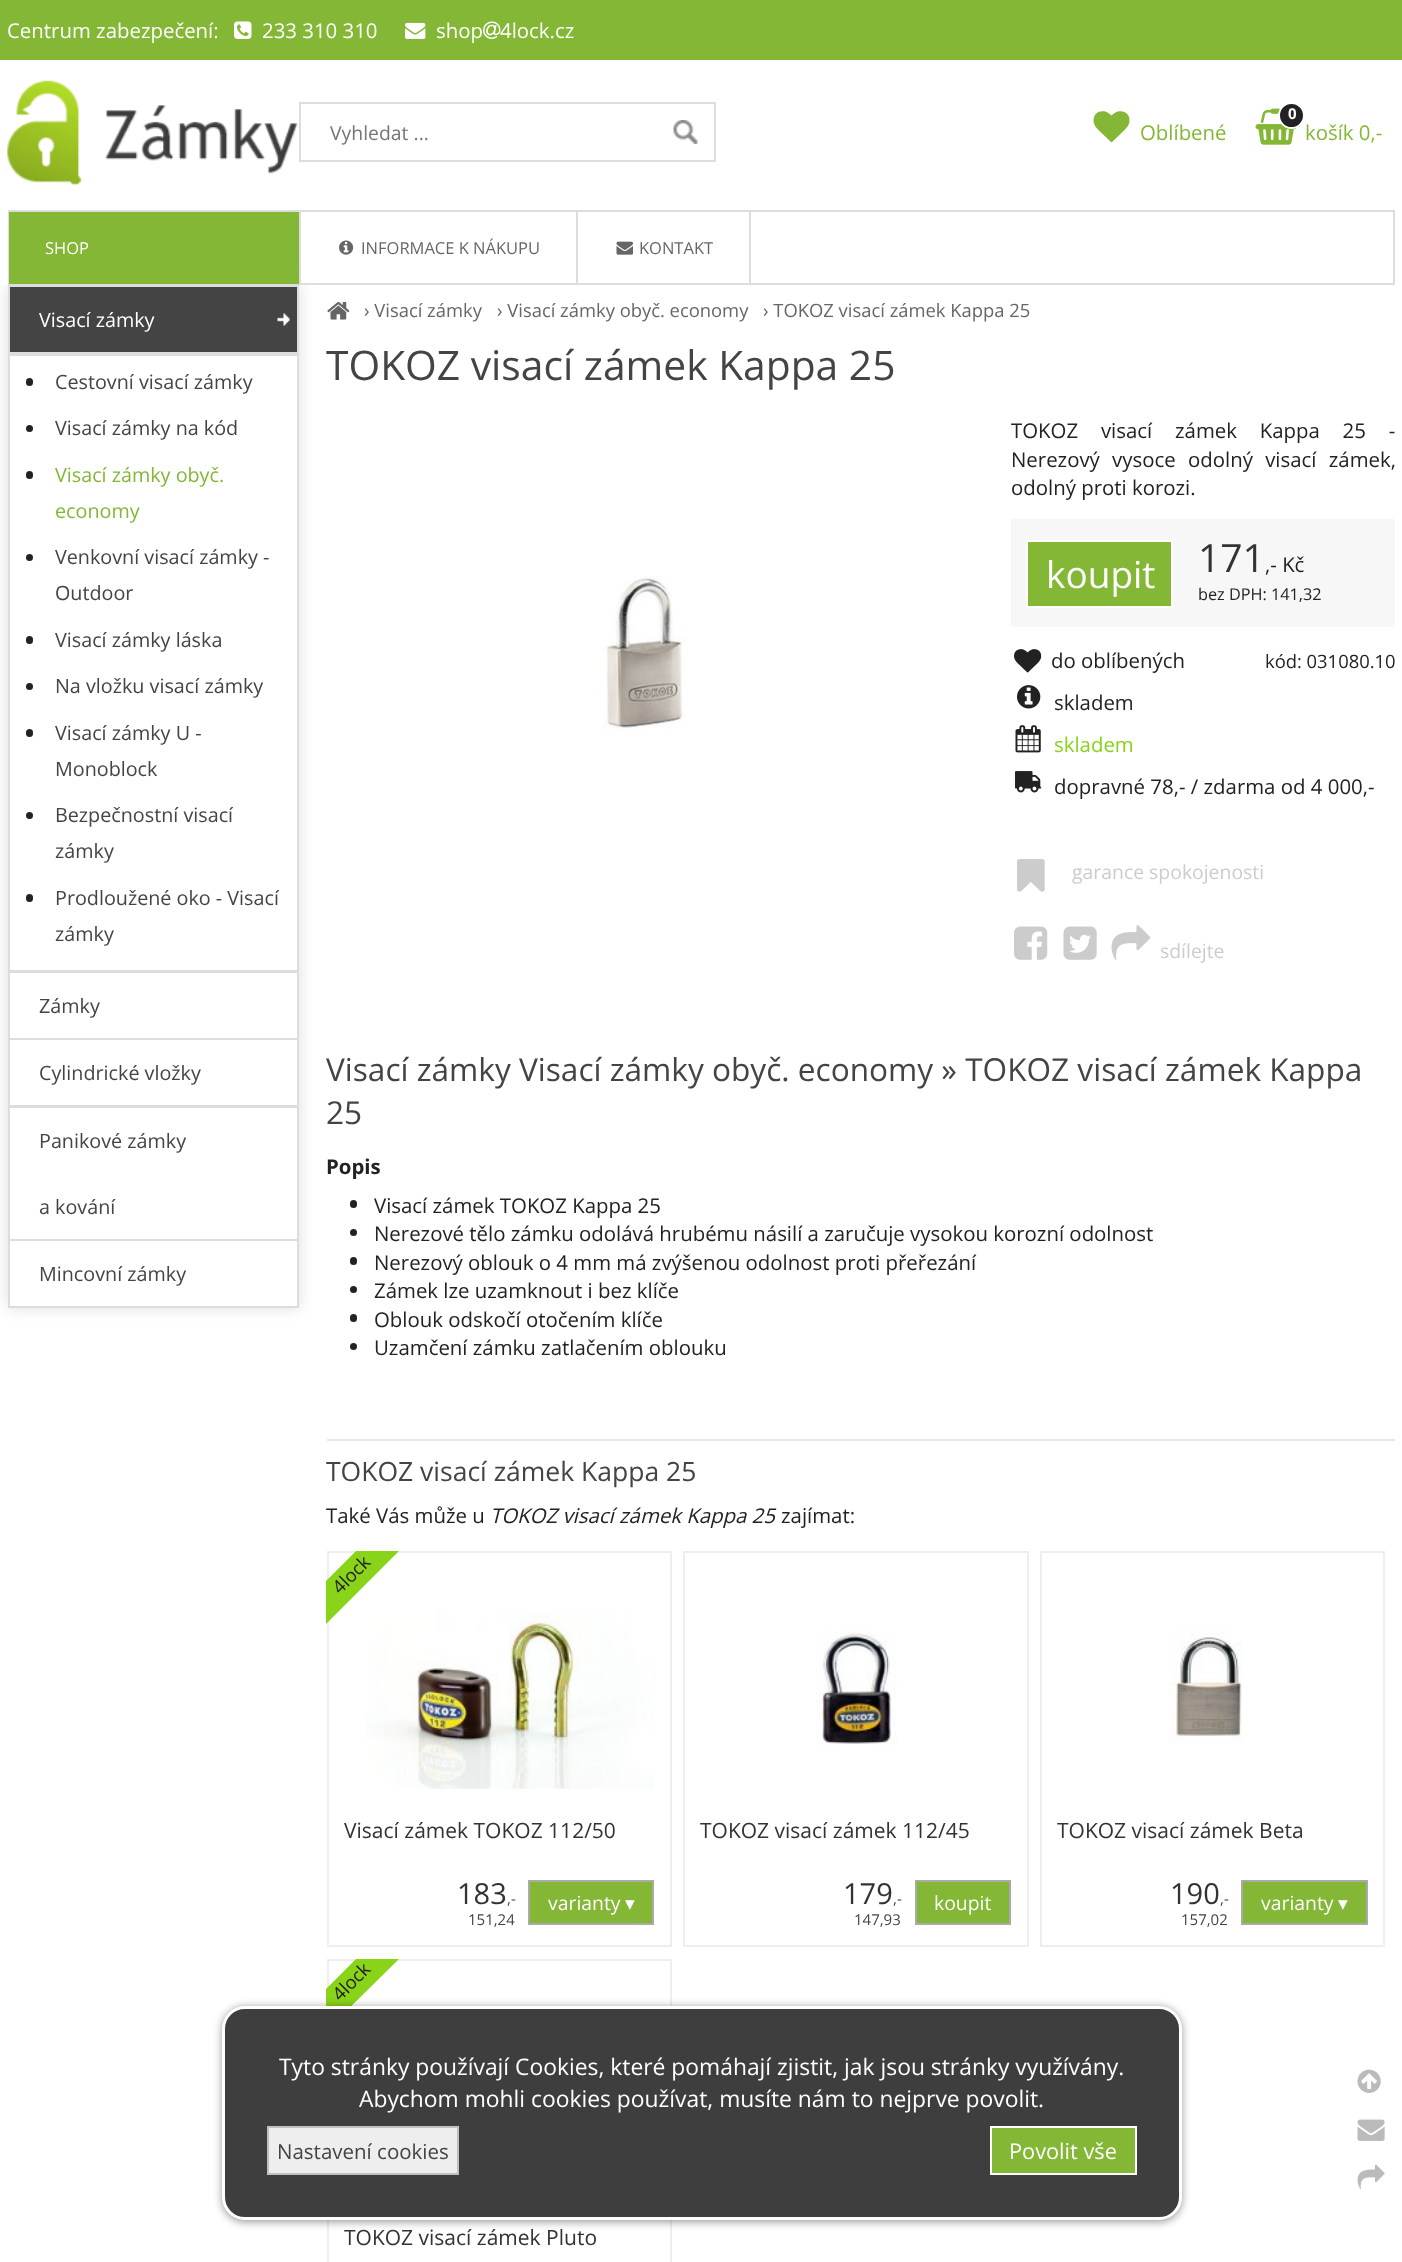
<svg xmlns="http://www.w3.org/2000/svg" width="1402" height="2262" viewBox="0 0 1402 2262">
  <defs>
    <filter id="blur1" x="-50%" y="-200%" width="200%" height="500%"><feGaussianBlur stdDeviation="7.5"/></filter>
    <filter id="blur2" x="-50%" y="-200%" width="200%" height="500%"><feGaussianBlur stdDeviation="4.5"/></filter>
  </defs>
  <rect width="100%" height="100%" fill="#ffffff"/>
  <rect x="0" y="0" width="1402" height="60" fill="#83b735"/>
  <rect x="8" y="285" width="291" height="1023" fill="#dddddd" filter="url(#blur1)"/>
  <rect x="1" y="274" width="305" height="11" fill="#ffffff"/>
  <text x="7" y="38" font-family="Open Sans" font-size="20.4" fill="#ffffff">Centrum zabezpečení:</text>
  <image x="234" y="21" width="18" height="18" href="img1.png"/>
  <text x="262" y="38" font-family="Open Sans" font-size="20.4" fill="#ffffff">233 310 310</text>
  <image x="405" y="22" width="21" height="17" href="img2.png"/>
  <text x="436" y="38" font-family="Open Sans" font-size="20.4" fill="#ffffff">shop</text>
  <image x="483" y="21" width="18" height="18" href="img3.png"/>
  <text x="500" y="38" font-family="Open Sans" font-size="20.4" fill="#ffffff">4lock.cz</text>
  <image x="7" y="80" width="291" height="106" href="img4.png"/>
  <image x="673" y="120" width="25" height="24" href="img5.png"/>
  <rect x="300" y="103" width="415" height="58" fill="none" stroke="#dddddd" stroke-width="2"/>
  <text x="330" y="140" font-family="Open Sans" font-size="19.4" fill="#757575">Vyhledat ...</text>
  <image x="1093" y="111" width="37" height="32" href="img6.png"/>
  <text x="1140" y="140" font-family="Open Sans" font-size="20.4" fill="#83b735">Oblíbené</text>
  <image x="1255" y="108" width="42" height="37" href="img7.png"/>
  <circle cx="1291.5" cy="115.5" r="12.5" fill="#222222" stroke="#ffffff" stroke-width="2"/>
  <text x="1288" y="119" font-family="Open Sans" font-size="15" font-weight="bold" fill="#ffffff">0</text>
  <text x="1305" y="140" font-family="Open Sans" font-size="20.4" fill="#83b735">košík 0,-</text>
  <rect x="9" y="211" width="1385" height="73" fill="none" stroke="#dddddd" stroke-width="2"/>
  <rect x="9" y="212" width="290" height="72" fill="#83b735"/>
  <rect x="299" y="212" width="2" height="72" fill="#dddddd"/>
  <text x="45" y="254" font-family="Open Sans" font-size="16.5" fill="#ffffff">SHOP</text>
  <rect x="576" y="212" width="2" height="72" fill="#dddddd"/>
  <image x="339" y="240" width="15" height="15" href="img8.png"/>
  <text x="361" y="254" font-family="Open Sans" font-size="16.5" fill="#666666">INFORMACE K NÁKUPU</text>
  <rect x="749" y="212" width="2" height="72" fill="#dddddd"/>
  <image x="616" y="241" width="17" height="14" href="img9.png"/>
  <text x="639" y="254" font-family="Open Sans" font-size="16.5" fill="#666666">KONTAKT</text>
  <rect x="10" y="287" width="287" height="65" fill="#444444"/>
  <image x="277" y="313" width="13" height="13" href="img10.png"/>
  <rect x="9" y="286" width="289" height="67" fill="none" stroke="#dddddd" stroke-width="2"/>
  <text x="39" y="327" font-family="Open Sans" font-size="19.75" fill="#ffffff">Visací zámky</text>
  <rect x="9" y="355" width="289" height="616" fill="#ffffff" stroke="#dddddd" stroke-width="2"/>
  <rect x="26" y="378" width="7" height="8" rx="3.5" fill="#222222"/>
  <text x="55" y="389" font-family="Open Sans" font-size="19.75" fill="#444444">Cestovní visací zámky</text>
  <circle cx="29.5" cy="428.5" r="3.5" fill="#222222"/>
  <text x="55" y="435" font-family="Open Sans" font-size="19.75" fill="#444444">Visací zámky na kód</text>
  <rect x="26" y="471" width="7" height="8" rx="3.5" fill="#222222"/>
  <text x="55" y="482" font-family="Open Sans" font-size="19.75" fill="#83b735">Visací zámky obyč.</text>
  <text x="55" y="518" font-family="Open Sans" font-size="19.75" fill="#83b735">economy</text>
  <circle cx="29.5" cy="557.5" r="3.5" fill="#222222"/>
  <text x="55" y="564" font-family="Open Sans" font-size="19.75" fill="#444444">Venkovní visací zámky -</text>
  <text x="55" y="600" font-family="Open Sans" font-size="19.75" fill="#444444">Outdoor</text>
  <rect x="26" y="636" width="7" height="8" rx="3.5" fill="#222222"/>
  <text x="55" y="647" font-family="Open Sans" font-size="19.75" fill="#444444">Visací zámky láska</text>
  <circle cx="29.5" cy="686.5" r="3.5" fill="#222222"/>
  <text x="55" y="693" font-family="Open Sans" font-size="19.75" fill="#444444">Na vložku visací zámky</text>
  <rect x="26" y="729" width="7" height="8" rx="3.5" fill="#222222"/>
  <text x="55" y="740" font-family="Open Sans" font-size="19.75" fill="#444444">Visací zámky U -</text>
  <text x="55" y="776" font-family="Open Sans" font-size="19.75" fill="#444444">Monoblock</text>
  <circle cx="29.5" cy="815.5" r="3.5" fill="#222222"/>
  <text x="55" y="822" font-family="Open Sans" font-size="19.75" fill="#444444">Bezpečnostní visací</text>
  <text x="55" y="858" font-family="Open Sans" font-size="19.75" fill="#444444">zámky</text>
  <rect x="26" y="894" width="7" height="8" rx="3.5" fill="#222222"/>
  <text x="55" y="905" font-family="Open Sans" font-size="19.75" fill="#444444">Prodloužené oko - Visací</text>
  <text x="55" y="941" font-family="Open Sans" font-size="19.75" fill="#444444">zámky</text>
  <rect x="9" y="972" width="289" height="67" fill="#ffffff" stroke="#dddddd" stroke-width="2"/>
  <text x="39" y="1013" font-family="Open Sans" font-size="19.75" fill="#444444">Zámky</text>
  <rect x="9" y="1039" width="289" height="67" fill="#ffffff" stroke="#dddddd" stroke-width="2"/>
  <text x="39" y="1080" font-family="Open Sans" font-size="19.75" fill="#444444">Cylindrické vložky</text>
  <rect x="9" y="1107" width="289" height="133" fill="#ffffff" stroke="#dddddd" stroke-width="2"/>
  <text x="39" y="1148" font-family="Open Sans" font-size="19.75" fill="#444444">Panikové zámky</text>
  <text x="39" y="1214" font-family="Open Sans" font-size="19.75" fill="#444444">a kování</text>
  <rect x="9" y="1240" width="289" height="67" fill="#ffffff" stroke="#dddddd" stroke-width="2"/>
  <text x="39" y="1281" font-family="Open Sans" font-size="19.75" fill="#444444">Mincovní zámky</text>
  <image x="327" y="302" width="23" height="18" href="img11.png"/>
  <text x="364" y="317" font-family="Open Sans" font-size="18.4" fill="#666666">› Visací zámky</text>
  <text x="497" y="317" font-family="Open Sans" font-size="18.4" fill="#666666">› Visací zámky obyč. economy</text>
  <text x="763" y="317" font-family="Open Sans" font-size="18.4" fill="#666666">› TOKOZ visací zámek Kappa 25</text>
  <text x="326" y="380" font-family="Open Sans" font-size="40.75" fill="#444444">TOKOZ visací zámek Kappa 25</text>
  <image x="603" y="576" width="84" height="155" href="img12.png"/>
  <text x="1011" y="438" word-spacing="17.5" font-family="Open Sans" font-size="20.4" fill="#222222">TOKOZ visací zámek Kappa 25 -</text>
  <text x="1011" y="467" word-spacing="7" font-family="Open Sans" font-size="20.4" fill="#222222">Nerezový vysoce odolný visací zámek,</text>
  <text x="1011" y="495" font-family="Open Sans" font-size="20.4" fill="#222222">odolný proti korozi.</text>
  <rect x="1011" y="519" width="384" height="108" fill="#f7f7f7"/>
  <rect x="1027" y="541" width="145" height="66" fill="#83b735" stroke="#ffffff" stroke-width="2"/>
  <text x="1046" y="588" font-family="Open Sans" font-size="37" fill="#ffffff">koupit</text>
  <text x="1198" y="572" font-family="Open Sans" font-size="39" fill="#333333">171</text>
  <text x="1265" y="572" font-family="Open Sans" font-size="20.4" fill="#222222">,- Kč</text>
  <text x="1198" y="600" font-family="Open Sans" font-size="16.25" fill="#222222">bez DPH: 141,32</text>
  <image x="1014" y="649" width="28" height="24" href="img13.png"/>
  <text x="1051" y="668" font-family="Open Sans" font-size="20.4" fill="#222222">do oblíbených</text>
  <text x="1265" y="668" font-family="Open Sans" font-size="18.4" fill="#222222">kód: 031080.10</text>
  <image x="1017" y="685" width="24" height="24" href="img14.png"/>
  <text x="1054" y="710" font-family="Open Sans" font-size="20.4" fill="#222222">skladem</text>
  <image x="1015" y="725" width="26" height="28" href="img15.png"/>
  <text x="1054" y="752" font-family="Open Sans" font-size="20.4" fill="#89d318">skladem</text>
  <image x="1015" y="771" width="27" height="22" href="img16.png"/>
  <text x="1054" y="794" font-family="Open Sans" font-size="20.4" fill="#222222">dopravné 78,- / zdarma od 4 000,-</text>
  <image x="1017" y="859" width="28" height="33" href="img17.png"/>
  <text x="1072" y="879" font-family="Open Sans" font-size="19.4" fill="#cccccc">garance spokojenosti</text>
  <image x="1014" y="926" width="34" height="34" href="img18.png"/>
  <image x="1063" y="926" width="34" height="34" href="img19.png"/>
  <image x="1111" y="925" width="40" height="35" href="img20.png"/>
  <text x="1160" y="958" font-family="Open Sans" font-size="19.4" fill="#cccccc">sdílejte</text>
  <text x="326" y="1081" font-family="Open Sans" font-size="31.6" fill="#444444">Visací zámky Visací zámky obyč. economy » TOKOZ visací zámek Kappa</text>
  <text x="326" y="1124" font-family="Open Sans" font-size="31.6" fill="#444444">25</text>
  <text x="326" y="1174" font-family="Open Sans" font-size="20.4" font-weight="bold" fill="#222222">Popis</text>
  <rect x="350" y="1200" width="7" height="8" rx="3.5" fill="#222222"/>
  <text x="374" y="1213" font-family="Open Sans" font-size="20.4" fill="#222222">Visací zámek TOKOZ Kappa 25</text>
  <circle cx="353.5" cy="1232.5" r="3.5" fill="#222222"/>
  <text x="374" y="1241" font-family="Open Sans" font-size="20.4" fill="#222222">Nerezové tělo zámku odolává hrubému násilí a zaručuje vysokou korozní odolnost</text>
  <rect x="350" y="1257" width="7" height="8" rx="3.5" fill="#222222"/>
  <text x="374" y="1270" font-family="Open Sans" font-size="20.4" fill="#222222">Nerezový oblouk o 4 mm má zvýšenou odolnost proti přeřezání</text>
  <circle cx="353.5" cy="1289.5" r="3.5" fill="#222222"/>
  <text x="374" y="1298" font-family="Open Sans" font-size="20.4" fill="#222222">Zámek lze uzamknout i bez klíče</text>
  <rect x="350" y="1314" width="7" height="8" rx="3.5" fill="#222222"/>
  <text x="374" y="1327" font-family="Open Sans" font-size="20.4" fill="#222222">Oblouk odskočí otočením klíče</text>
  <circle cx="353.5" cy="1346.5" r="3.5" fill="#222222"/>
  <text x="374" y="1355" font-family="Open Sans" font-size="20.4" fill="#222222">Uzamčení zámku zatlačením oblouku</text>
  <rect x="327" y="1439" width="1068" height="2" fill="#e7e7e7"/>
  <text x="326" y="1481" font-family="Open Sans" font-size="26.5" fill="#444444">TOKOZ visací zámek Kappa 25</text>
  <text x="326" y="1523" font-family="Open Sans" font-size="20.4" fill="#222222">Také Vás může u</text>
  <text x="490" y="1523" font-family="Open Sans" font-size="20.4" font-style="italic" fill="#222222">TOKOZ visací zámek Kappa 25</text>
  <text x="781" y="1523" font-family="Open Sans" font-size="20.4" fill="#222222">zajímat:</text>
  <rect x="328" y="1552" width="343" height="394" fill="none" stroke="#eeeeee" stroke-width="2"/>
  <image x="366" y="1610" width="288" height="180" href="img21.png"/>
  <path d="M399 1551L326 1624V1581L356 1551Z" fill="#89d318"/>
  <text x="340" y="1595" transform="rotate(-45 340 1595)" font-family="Open Sans" font-size="18.4" fill="#222222">4lock</text>
  <text x="344" y="1838" font-family="Open Sans" font-size="21" fill="#333333">Visací zámek TOKOZ 112/50</text>
  <text x="457" y="1904" font-family="Open Sans" font-size="29" fill="#333333">183</text>
  <text x="507" y="1904" font-family="Open Sans" font-size="15" fill="#444444">,-</text>
  <text x="468" y="1925" font-family="Open Sans" font-size="15" fill="#444444">151,24</text>
  <rect x="529" y="1881" width="124" height="43" fill="#83b735" stroke="#aaaaaa" stroke-width="2"/>
  <text x="548" y="1910" font-family="Open Sans" font-size="19.4" fill="#ffffff">varianty</text>
  <text x="625" y="1910" font-family="DejaVu Sans" font-size="19.4" fill="#ffffff">▾</text>
  <rect x="684" y="1552" width="344" height="394" fill="none" stroke="#eeeeee" stroke-width="2"/>
  <image x="816" y="1631" width="81" height="114" href="img22.png"/>
  <text x="700" y="1838" font-family="Open Sans" font-size="21" fill="#333333">TOKOZ visací zámek 112/45</text>
  <text x="843" y="1904" font-family="Open Sans" font-size="29" fill="#333333">179</text>
  <text x="893" y="1904" font-family="Open Sans" font-size="15" fill="#444444">,-</text>
  <text x="854" y="1925" font-family="Open Sans" font-size="15" fill="#444444">147,93</text>
  <rect x="916" y="1881" width="94" height="43" fill="#83b735" stroke="#aaaaaa" stroke-width="2"/>
  <text x="934" y="1910" font-family="Open Sans" font-size="19.4" fill="#ffffff">koupit</text>
  <rect x="1041" y="1552" width="343" height="394" fill="none" stroke="#eeeeee" stroke-width="2"/>
  <image x="1166" y="1631" width="77" height="112" href="img23.png"/>
  <text x="1057" y="1838" font-family="Open Sans" font-size="21" fill="#333333">TOKOZ visací zámek Beta</text>
  <text x="1170" y="1904" font-family="Open Sans" font-size="29" fill="#333333">190</text>
  <text x="1220" y="1904" font-family="Open Sans" font-size="15" fill="#444444">,-</text>
  <text x="1181" y="1925" font-family="Open Sans" font-size="15" fill="#444444">157,02</text>
  <rect x="1242" y="1881" width="125" height="43" fill="#83b735" stroke="#aaaaaa" stroke-width="2"/>
  <text x="1261" y="1910" font-family="Open Sans" font-size="19.4" fill="#ffffff">varianty</text>
  <text x="1338" y="1910" font-family="DejaVu Sans" font-size="19.4" fill="#ffffff">▾</text>
  <rect x="328" y="1960" width="343" height="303" fill="none" stroke="#eeeeee" stroke-width="2"/>
  <path d="M399 1959L326 2031V1989L356 1959Z" fill="#89d318"/>
  <text x="340" y="2002" transform="rotate(-45 340 2002)" font-family="Open Sans" font-size="18.4" fill="#222222">4lock</text>
  <text x="344" y="2245" font-family="Open Sans" font-size="21" fill="#333333">TOKOZ visací zámek Pluto</text>
  <rect x="222" y="2007" width="960" height="215" rx="23" fill="#000000" fill-opacity="0.4" filter="url(#blur2)"/>
  <rect x="223.5" y="2007.5" width="957" height="211" rx="21.5" fill="#3e3e3e" stroke="#ffffff" stroke-width="3"/>
  <text x="279" y="2075" font-family="Open Sans" font-size="22.85" fill="#ffffff">Tyto stránky používají Cookies, které pomáhají zjistit, jak jsou stránky využívány.</text>
  <text x="359" y="2107" font-family="Open Sans" font-size="22.85" fill="#ffffff">Abychom mohli cookies používat, musíte nám to nejprve povolit.</text>
  <rect x="268" y="2127" width="190" height="47" fill="#eeeeee" stroke="#c0c0c0" stroke-width="2"/>
  <text x="277" y="2159" font-family="Open Sans" font-size="20.5" fill="#444444">Nastavení cookies</text>
  <rect x="991" y="2127" width="145" height="47" fill="#83b735" stroke="#ffffff" stroke-width="2"/>
  <text x="1009" y="2159" font-family="Open Sans" font-size="21.75" fill="#ffffff">Povolit vše</text>
  <image x="1357" y="2069" width="24" height="24" href="img24.png"/>
  <image x="1357" y="2119" width="28" height="22" href="img25.png"/>
  <image x="1357" y="2164" width="28" height="25" href="img26.png"/>
</svg>
